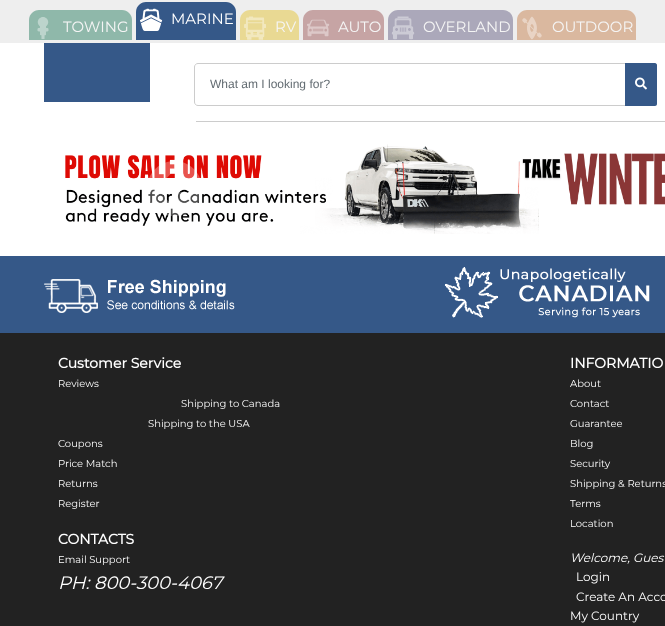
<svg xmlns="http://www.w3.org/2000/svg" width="665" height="626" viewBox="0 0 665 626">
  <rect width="100%" height="100%" fill="#ffffff"/>
  <rect x="0" y="0" width="665" height="43" fill="#eeeeee"/>
  <path d="M146 2H226C231.5 2 236 6.5 236 12V40H136V12C136 6.5 140.5 2 146 2Z" fill="#355888"/>
  <image x="140" y="8" width="23" height="23" href="img1.png"/>
  <text x="171" y="24" font-family="Montserrat" font-size="15" font-weight="100" fill="#ffffff">MARINE</text>
  <path d="M39 10H122C127.5 10 132 14.5 132 20V40H29V20C29 14.5 33.5 10 39 10Z" fill="#8fb8aa"/>
  <image x="37" y="17" width="12" height="22" href="img2.png"/>
  <text x="63" y="32" font-family="Montserrat" font-size="15" font-weight="100" fill="#f5f5f5">TOWING</text>
  <path d="M250 10H289C294.5 10 299 14.5 299 20V40H240V20C240 14.5 244.5 10 250 10Z" fill="#e9d993"/>
  <image x="244" y="16" width="22" height="24" href="img3.png"/>
  <text x="275" y="32" font-family="Montserrat" font-size="15" font-weight="100" fill="#f5f5f5">RV</text>
  <path d="M313 10H374C379.5 10 384 14.5 384 20V40H303V20C303 14.5 307.5 10 313 10Z" fill="#c6a4a4"/>
  <image x="307" y="19" width="23" height="18" href="img4.png"/>
  <text x="338" y="32" font-family="Montserrat" font-size="15" font-weight="100" fill="#f5f5f5">AUTO</text>
  <path d="M398 10H503C508.5 10 513 14.5 513 20V40H388V20C388 14.5 392.5 10 398 10Z" fill="#aba8ba"/>
  <image x="391" y="16" width="24" height="24" href="img5.png"/>
  <text x="423" y="32" font-family="Montserrat" font-size="15" font-weight="100" fill="#f5f5f5">OVERLAND</text>
  <path d="M527 10H626C631.5 10 636 14.5 636 20V40H517V20C517 14.5 521.5 10 527 10Z" fill="#dab89f"/>
  <image x="522" y="16" width="20" height="24" href="img6.png"/>
  <text x="552" y="32" font-family="Montserrat" font-size="15" font-weight="100" fill="#f5f5f5">OUTDOOR</text>
  <rect x="44" y="43" width="106" height="59" fill="#355888"/>
  <path d="M198 63.5H625.5V105.5H198C196 105.5 194.5 104 194.5 102V67C194.5 65 196 63.5 198 63.5Z" fill="none" stroke="#cccccc"/>
  <text x="210" y="88" font-family="Liberation Sans" font-size="12" fill="#636c72">What am I looking for?</text>
  <path d="M625 63H655C656 63 657 64 657 65V104C657 105 656 106 655 106H625Z" fill="#355888"/>
  <image x="635" y="77" width="12" height="13" href="img7.png"/>
  <rect x="196" y="121" width="469" height="1" fill="#cccccc"/>
  <image x="65" y="144" width="600" height="90" href="img8.png"/>
  <image x="148" y="161" width="52" height="56" href="img9.png"/>
  <rect x="0" y="333" width="665" height="293" fill="#222222"/>
  <rect x="0" y="256" width="665" height="77" fill="#355888"/>
  <image x="44" y="279" width="191" height="34" href="img10.png"/>
  <image x="444" y="267" width="206" height="51" href="img11.png"/>
  <text x="58" y="368" font-family="Montserrat" font-size="14" font-weight="bold" fill="#ffffff">Customer Service</text>
  <text x="58" y="387" font-family="Montserrat" font-size="10" font-weight="100" fill="#ffffff">Reviews</text>
  <text x="181" y="407" font-family="Montserrat" font-size="10" font-weight="100" fill="#ffffff">Shipping to Canada</text>
  <text x="148" y="427" font-family="Montserrat" font-size="10" font-weight="100" fill="#ffffff">Shipping to the USA</text>
  <text x="58" y="447" font-family="Montserrat" font-size="10" font-weight="100" fill="#ffffff">Coupons</text>
  <text x="58" y="467" font-family="Montserrat" font-size="10" font-weight="100" fill="#ffffff">Price Match</text>
  <text x="58" y="487" font-family="Montserrat" font-size="10" font-weight="100" fill="#ffffff">Returns</text>
  <text x="58" y="507" font-family="Montserrat" font-size="10" font-weight="100" fill="#ffffff">Register</text>
  <text x="58" y="544" font-family="Montserrat" font-size="14" font-weight="bold" fill="#ffffff">CONTACTS</text>
  <text x="58" y="563" font-family="Montserrat" font-size="10" font-weight="100" fill="#ffffff">Email Support</text>
  <text x="58" y="589" font-family="Montserrat" font-size="18" font-weight="100" font-style="italic" fill="#ffffff">PH: 800-300-4067</text>
  <text x="570" y="368" font-family="Montserrat" font-size="14" font-weight="bold" fill="#ffffff">INFORMATIO</text>
  <text x="570" y="387" font-family="Montserrat" font-size="10" font-weight="100" fill="#ffffff">About</text>
  <text x="570" y="407" font-family="Montserrat" font-size="10" font-weight="100" fill="#ffffff">Contact</text>
  <text x="570" y="427" font-family="Montserrat" font-size="10" font-weight="100" fill="#ffffff">Guarantee</text>
  <text x="570" y="447" font-family="Montserrat" font-size="10" font-weight="100" fill="#ffffff">Blog</text>
  <text x="570" y="467" font-family="Montserrat" font-size="10" font-weight="100" fill="#ffffff">Security</text>
  <text x="570" y="487" font-family="Montserrat" font-size="10" font-weight="100" fill="#ffffff">Shipping &amp; Returns</text>
  <text x="570" y="507" font-family="Montserrat" font-size="10" font-weight="100" fill="#ffffff">Terms</text>
  <text x="570" y="527" font-family="Montserrat" font-size="10" font-weight="100" fill="#ffffff">Location</text>
  <text x="570" y="562" font-family="Montserrat" font-size="12" font-weight="100" font-style="italic" fill="#ffffff">Welcome, Gues</text>
  <text x="576" y="581" font-family="Montserrat" font-size="12" font-weight="100" fill="#ffffff">Login</text>
  <text x="576" y="601" font-family="Montserrat" font-size="12" font-weight="100" fill="#ffffff">Create An Acco</text>
  <text x="570" y="620" font-family="Montserrat" font-size="12" font-weight="100" fill="#ffffff">My Country</text>
</svg>
